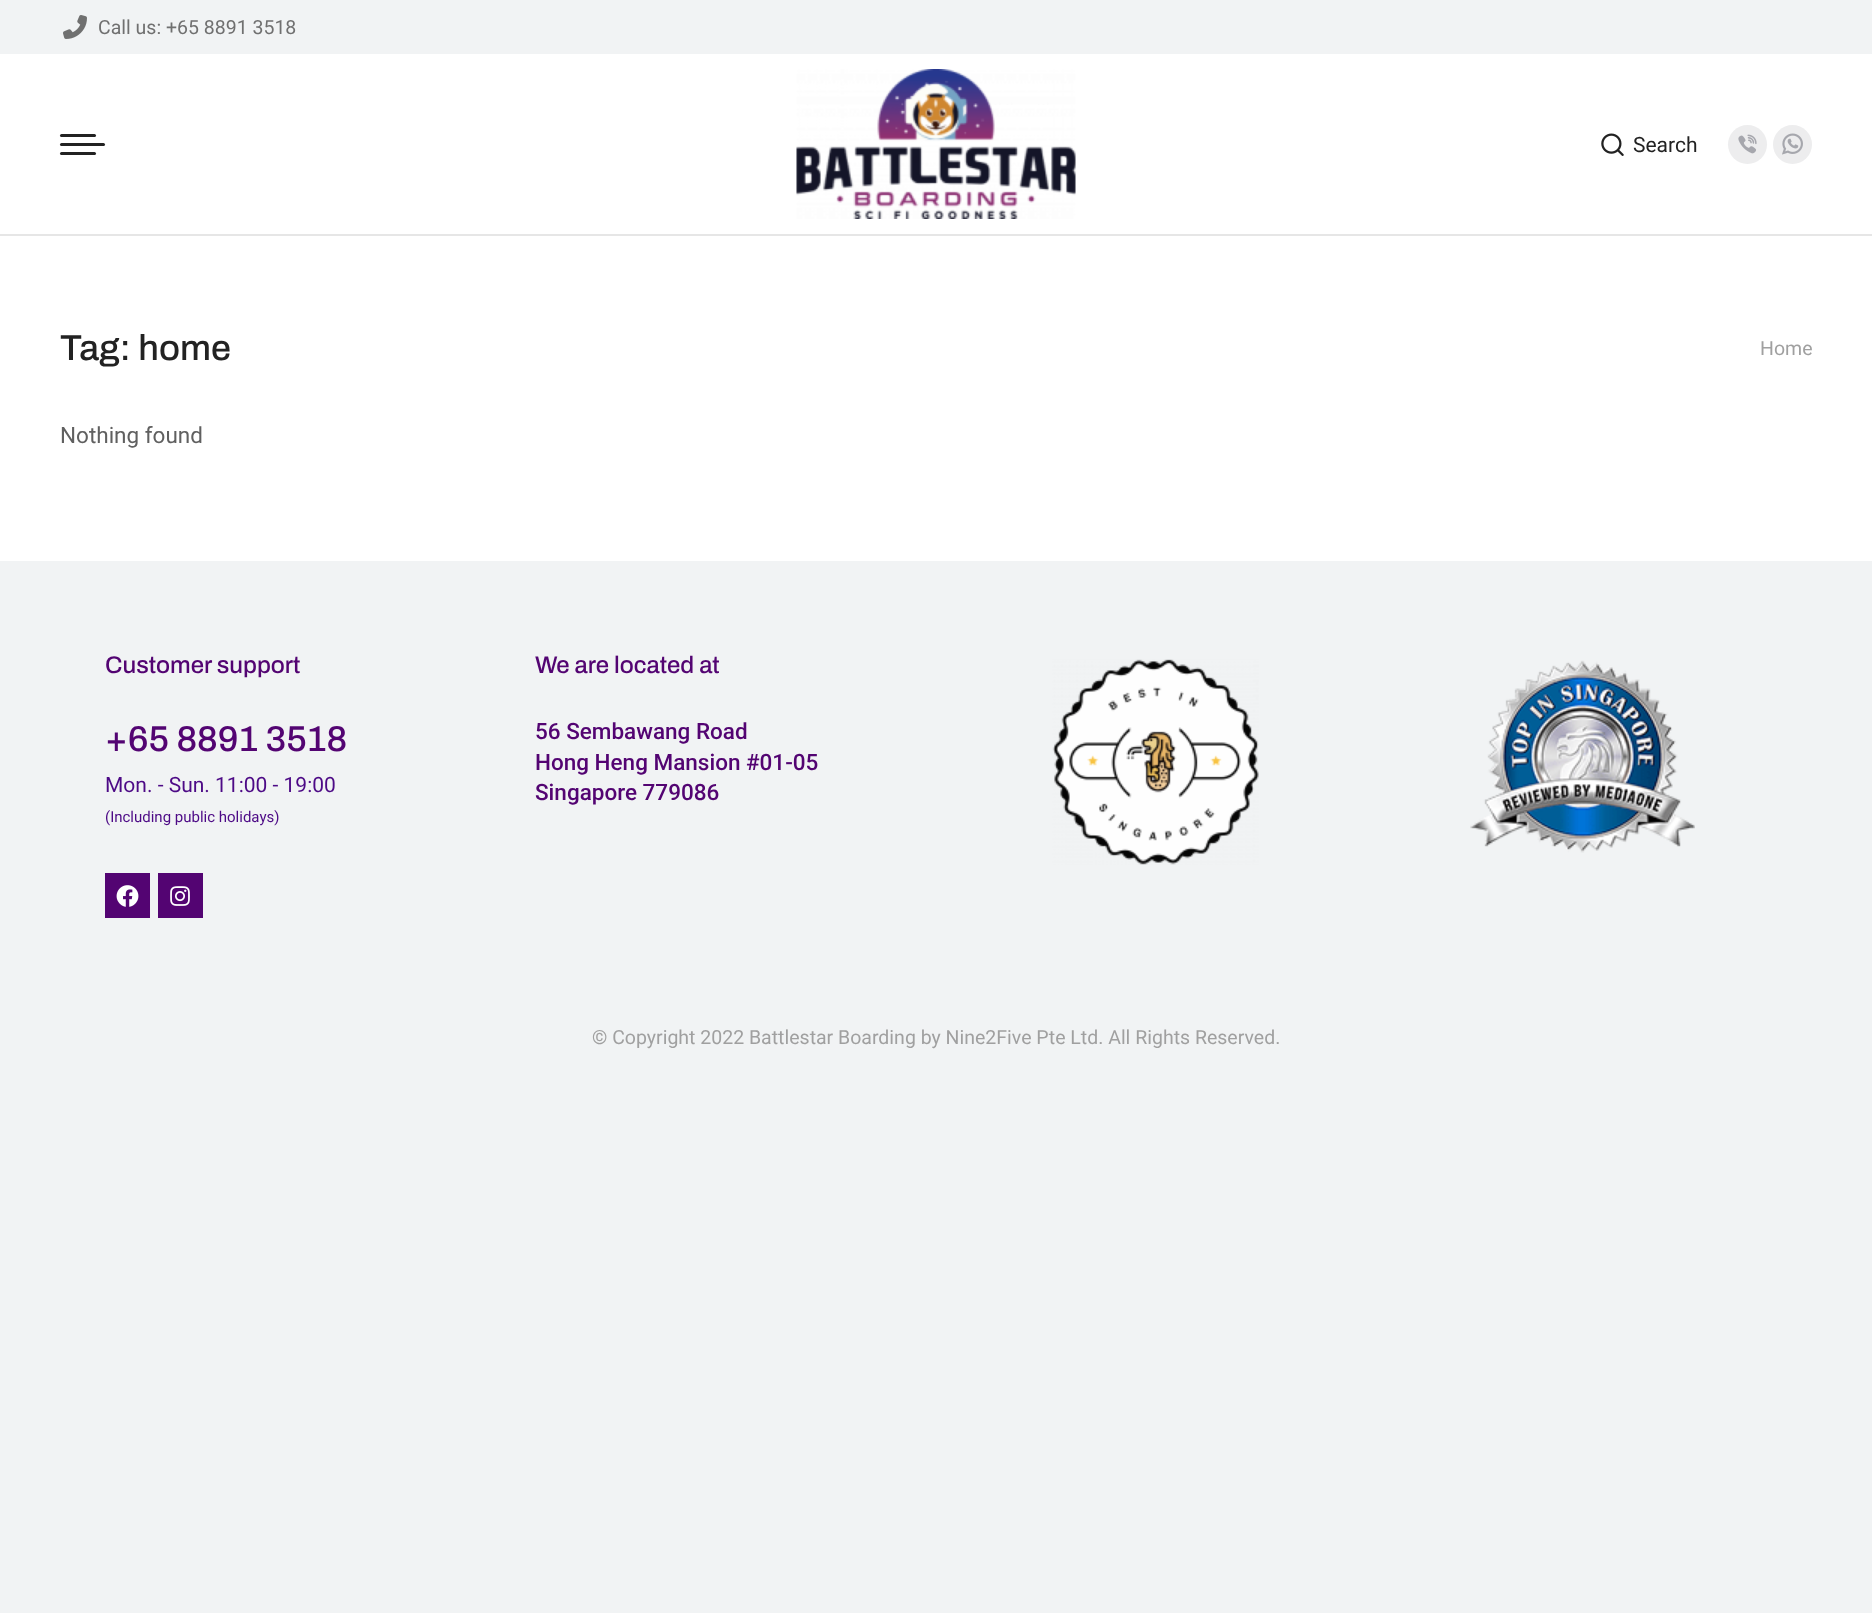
<svg xmlns="http://www.w3.org/2000/svg" width="1872" height="1613" viewBox="0 0 1872 1613">
  <rect width="100%" height="100%" fill="#f1f3f4"/>
  <rect x="0" y="54" width="1872" height="507" fill="#ffffff"/>
  <rect x="0" y="234" width="1872" height="2" fill="#e6e6e6"/>
  <image x="63" y="15" width="24" height="24" href="img1.png"/>
  <text x="98" y="34" font-family="Roboto" font-size="19.5" fill="#707070">Call us: +65 8891 3518</text>
  <rect x="60" y="134" width="36" height="3" rx="1.5" fill="#222222"/>
  <rect x="60" y="143" width="45" height="3" rx="1.5" fill="#222222"/>
  <rect x="60" y="152" width="36" height="3" rx="1.5" fill="#222222"/>
  <image x="796" y="69" width="280" height="150" href="img2.png"/>
  <image x="1601" y="133" width="23" height="23" href="img3.png"/>
  <text x="1633" y="152" font-family="Roboto" font-size="21" fill="#222222">Search</text>
  <circle cx="1747.5" cy="144.5" r="19.5" fill="#ededee"/>
  <image x="1738" y="134" width="19" height="20" href="img4.png"/>
  <circle cx="1792.5" cy="144.5" r="19.5" fill="#ededee"/>
  <image x="1782" y="133" width="21" height="22" href="img5.png"/>
  <text x="60" y="360" font-family="Archivo" font-size="36" font-weight="500" fill="#222222">Tag: home</text>
  <text x="1760" y="355" font-family="Roboto" font-size="19.5" fill="#a0a0a0">Home</text>
  <text x="60" y="443" font-family="Roboto" font-size="22.5" fill="#606060">Nothing found</text>
  <text x="105" y="673" font-family="Archivo" font-size="24" font-weight="500" fill="#530472">Customer support</text>
  <text x="105" y="751" font-family="Archivo" font-size="36" font-weight="500" fill="#530472">+65 8891 3518</text>
  <text x="105" y="792" font-family="Roboto" font-size="21" fill="#4d0a86">Mon. - Sun. 11:00 - 19:00</text>
  <text x="105" y="822" font-family="Roboto" font-size="15" fill="#4d0a86">(Including public holidays)</text>
  <rect x="105" y="873" width="45" height="45" fill="#530472"/>
  <image x="116" y="885" width="23" height="22" href="img6.png"/>
  <rect x="158" y="873" width="45" height="45" fill="#530472"/>
  <image x="170" y="886" width="20" height="20" href="img7.png"/>
  <text x="535" y="673" font-family="Archivo" font-size="24" font-weight="500" fill="#530472">We are located at</text>
  <text x="535" y="739" font-family="Roboto" font-size="22.5" font-weight="500" fill="#530472">56 Sembawang Road</text>
  <text x="535" y="770" font-family="Roboto" font-size="22.5" font-weight="500" fill="#530472">Hong Heng Mansion #01-05</text>
  <text x="535" y="800" font-family="Roboto" font-size="22.5" font-weight="500" fill="#530472">Singapore 779086</text>
  <image x="1052" y="659" width="207" height="206" href="img8.png"/>
  <image x="1470" y="660" width="225" height="193" href="img9.png"/>
  <text x="592" y="1044" font-family="Roboto" font-size="19.5" fill="#a0a0a0">© Copyright 2022 Battlestar Boarding by Nine2Five Pte Ltd. All Rights Reserved.</text>
</svg>
